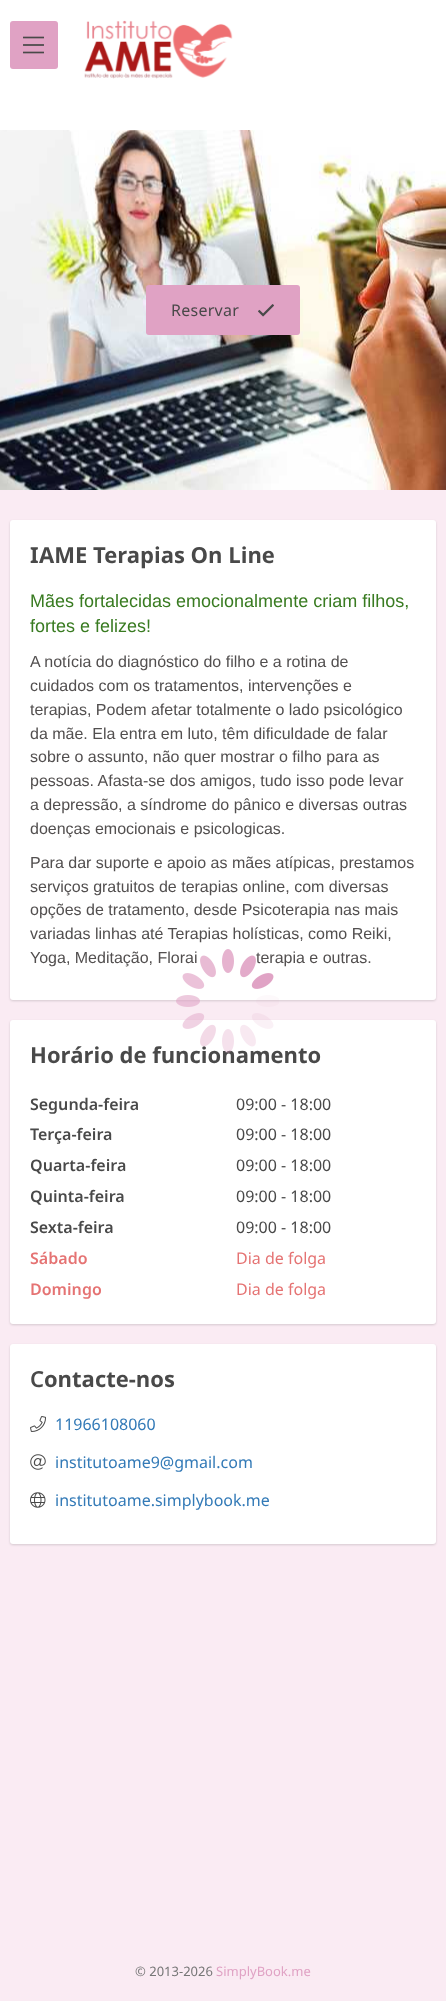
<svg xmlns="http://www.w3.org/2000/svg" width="446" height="2001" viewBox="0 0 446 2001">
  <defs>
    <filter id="blur1" x="-50%" y="-200%" width="200%" height="500%"><feGaussianBlur stdDeviation="1"/></filter>
  </defs>
  <rect width="100%" height="100%" fill="#faebf3"/>
  <rect x="0" y="0" width="446" height="130" fill="#ffffff"/>
  <rect x="10" y="21" width="48" height="48" rx="3" fill="#e0a2c4"/>
  <image x="23" y="36" width="21" height="18" href="img1.png"/>
  <image x="84" y="20" width="149" height="59" href="img2.png"/>
  <image x="0" y="130" width="446" height="360" href="img3.png"/>
  <rect x="146" y="285" width="154" height="50" rx="3" fill="#e0a2c4"/>
  <text x="171" y="316" font-family="Noto Sans" font-size="16" letter-spacing="0.25" fill="#494949">Reservar</text>
  <image x="258" y="304" width="16" height="13" href="img4.png"/>
  <rect x="10" y="521" width="426" height="480" rx="3" fill="#000000" fill-opacity="0.15" filter="url(#blur1)"/>
  <rect x="10" y="520" width="426" height="480" rx="3" fill="#ffffff"/>
  <text x="30" y="563" font-family="Noto Sans" font-size="22" font-weight="bold" fill="#494949">I</text>
  <text x="39" y="563" font-family="'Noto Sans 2'" font-size="22" font-weight="bold" fill="#494949">AME Terapias On Line</text>
  <text x="30" y="607" font-family="Liberation Sans" font-size="18" fill="#397b21">Mães fortalecidas emocionalmente criam filhos,</text>
  <text x="30" y="632" font-family="Liberation Sans" font-size="18" fill="#397b21">fortes e felizes!</text>
  <text x="30" y="667" font-family="Liberation Sans" font-size="16" fill="#524f4f">A notícia do diagnóstico do filho e a rotina de</text>
  <text x="30" y="691" font-family="Liberation Sans" font-size="16" fill="#524f4f">cuidados com os tratamentos, intervenções e</text>
  <text x="30" y="715" font-family="Liberation Sans" font-size="16" fill="#524f4f">terapias, Podem afetar totalmente o lado psicológico</text>
  <text x="30" y="739" font-family="Liberation Sans" font-size="16" fill="#524f4f">da mãe. Ela entra em luto, têm dificuldade de falar</text>
  <text x="30" y="762" font-family="Liberation Sans" font-size="16" fill="#524f4f">sobre o assunto, não quer mostrar o filho para as</text>
  <text x="30" y="786" font-family="Liberation Sans" font-size="16" fill="#524f4f">pessoas. Afasta-se dos amigos, tudo isso pode levar</text>
  <text x="30" y="810" font-family="Liberation Sans" font-size="16" fill="#524f4f">a depressão, a síndrome do pânico e diversas outras</text>
  <text x="30" y="834" font-family="Liberation Sans" font-size="16" fill="#524f4f">doenças emocionais e psicologicas.</text>
  <text x="30" y="868" font-family="Liberation Sans" font-size="16" fill="#524f4f">Para dar suporte e apoio as mães atípicas, prestamos</text>
  <text x="30" y="892" font-family="Liberation Sans" font-size="16" fill="#524f4f">serviços gratuitos de terapias online, com diversas</text>
  <text x="30" y="915" font-family="Liberation Sans" font-size="16" fill="#524f4f">opções de tratamento, desde Psicoterapia nas mais</text>
  <text x="30" y="939" font-family="Liberation Sans" font-size="16" fill="#524f4f">variadas linhas até Terapias holísticas, como Reiki,</text>
  <text x="30" y="963" font-family="Liberation Sans" font-size="16" fill="#524f4f">Yoga, Meditação, Florai</text>
  <text x="256" y="963" font-family="Liberation Sans" font-size="16" fill="#524f4f">terapia e outras.</text>
  <rect x="10" y="1021" width="426" height="304" rx="3" fill="#000000" fill-opacity="0.15" filter="url(#blur1)"/>
  <rect x="10" y="1020" width="426" height="304" rx="3" fill="#ffffff"/>
  <text x="30" y="1063" font-family="Noto Sans" font-size="22" font-weight="bold" fill="#494949">H</text>
  <text x="47" y="1063" font-family="'Noto Sans 2'" font-size="22" font-weight="bold" fill="#494949">orário de funcionamento</text>
  <text x="30" y="1110" font-family="Noto Sans" font-size="16" font-weight="600" fill="#494949">Segunda-feira</text>
  <text x="236" y="1110" font-family="Noto Sans" font-size="16" fill="#494949">09:00 - 18:00</text>
  <text x="30" y="1140" font-family="Noto Sans" font-size="16" font-weight="600" fill="#494949">Terça-feira</text>
  <text x="236" y="1140" font-family="Noto Sans" font-size="16" fill="#494949">09:00 - 18:00</text>
  <text x="30" y="1171" font-family="Noto Sans" font-size="16" font-weight="600" fill="#494949">Quarta-feira</text>
  <text x="236" y="1171" font-family="Noto Sans" font-size="16" fill="#494949">09:00 - 18:00</text>
  <text x="30" y="1202" font-family="Noto Sans" font-size="16" font-weight="600" fill="#494949">Quinta-feira</text>
  <text x="236" y="1202" font-family="Noto Sans" font-size="16" fill="#494949">09:00 - 18:00</text>
  <text x="30" y="1233" font-family="Noto Sans" font-size="16" font-weight="600" fill="#494949">Sexta-feira</text>
  <text x="236" y="1233" font-family="Noto Sans" font-size="16" fill="#494949">09:00 - 18:00</text>
  <text x="30" y="1264" font-family="Noto Sans" font-size="16" font-weight="600" fill="#e57373">Sábado</text>
  <text x="236" y="1264" font-family="Noto Sans" font-size="16" fill="#e57373">Dia de folga</text>
  <text x="30" y="1295" font-family="Noto Sans" font-size="16" font-weight="600" fill="#e57373">Domingo</text>
  <text x="236" y="1295" font-family="Noto Sans" font-size="16" fill="#e57373">Dia de folga</text>
  <rect x="10" y="1345" width="426" height="200" rx="3" fill="#000000" fill-opacity="0.15" filter="url(#blur1)"/>
  <rect x="10" y="1344" width="426" height="200" rx="3" fill="#ffffff"/>
  <text x="30" y="1387" font-family="'Noto Sans 2'" font-size="22" font-weight="600" fill="#494949">C</text>
  <text x="44" y="1387" font-family="'Noto Sans 2'" font-size="22" font-weight="bold" fill="#494949">ontacte-nos</text>
  <image x="30" y="1416" width="16" height="16" href="img5.png"/>
  <text x="55" y="1430" font-family="Noto Sans" font-size="16" fill="#337ab7">11966108060</text>
  <image x="30" y="1454" width="16" height="16" href="img6.png"/>
  <text x="55" y="1468" font-family="Noto Sans" font-size="16" fill="#337ab7">institutoame9@gmail.com</text>
  <image x="30" y="1492" width="16" height="16" href="img7.png"/>
  <text x="55" y="1506" font-family="Noto Sans" font-size="16" fill="#337ab7">institutoame.simplybook.me</text>
  <image x="176" y="949" width="103" height="104" href="img8.png"/>
  <text x="135" y="1976" font-family="Noto Sans" font-size="13" fill="#767676">© 2013-2026</text>
  <text x="216" y="1976" font-family="Noto Sans" font-size="13" fill="#e0a2c4">SimplyBook.me</text>
</svg>
